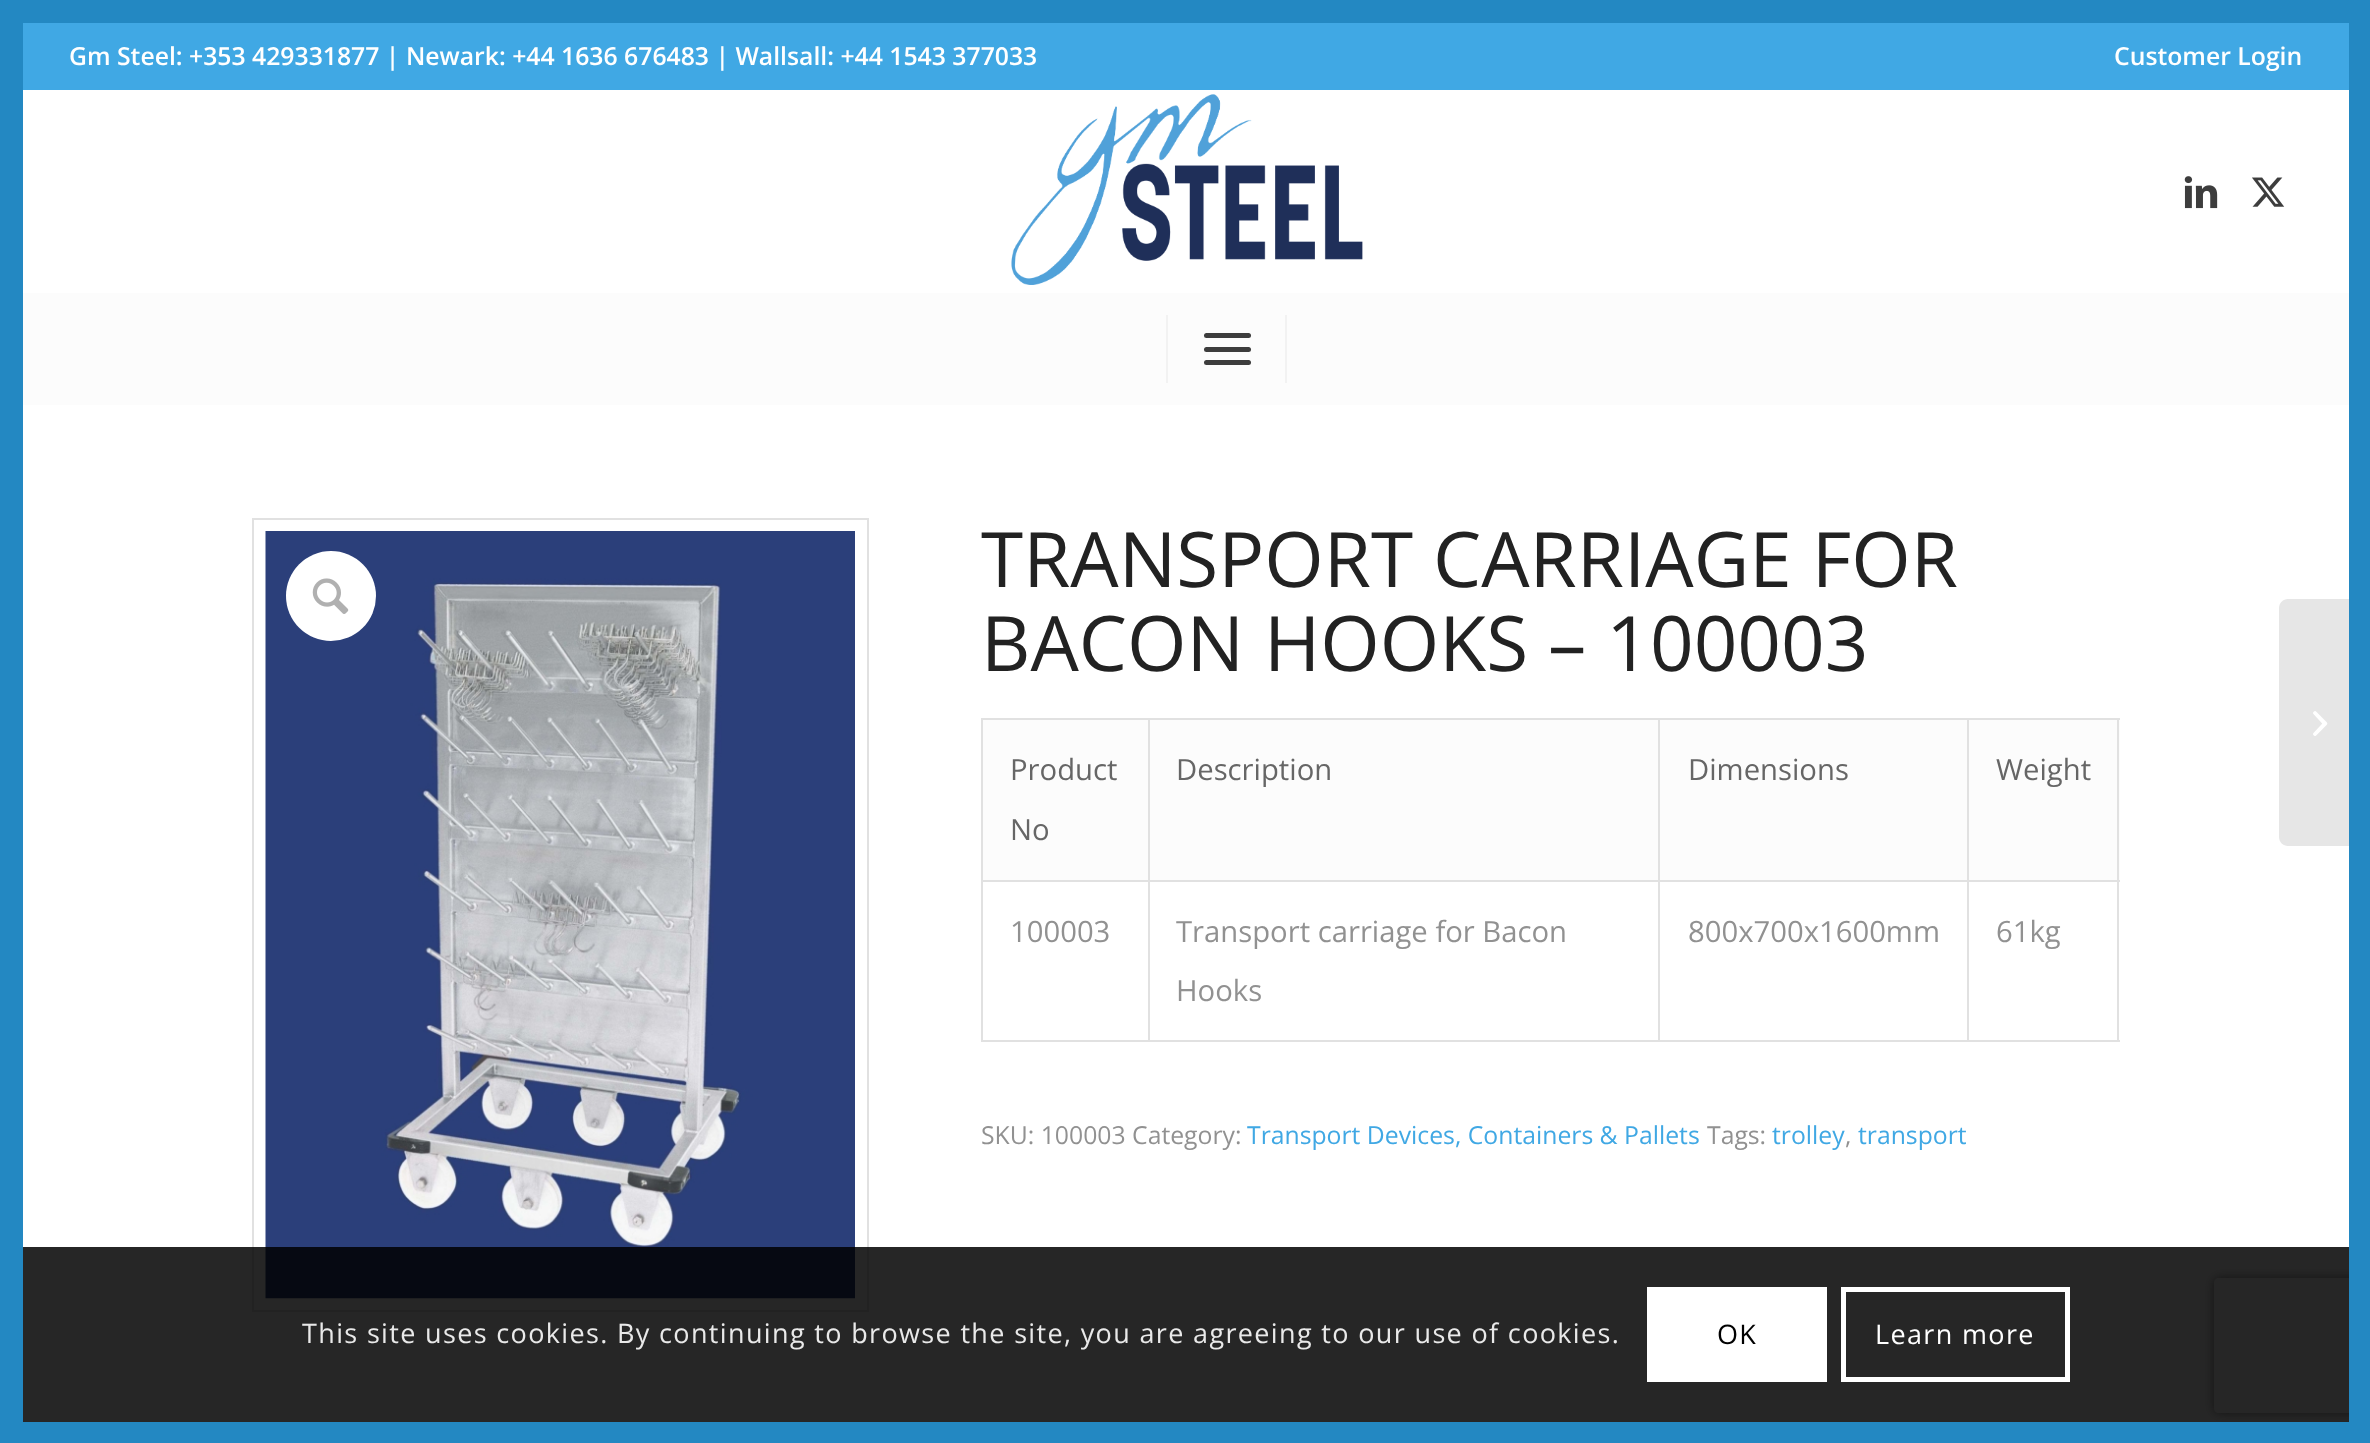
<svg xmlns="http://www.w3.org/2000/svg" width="2370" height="1443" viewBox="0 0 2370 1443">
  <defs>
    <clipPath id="clip1"><path d="M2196 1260H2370V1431H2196ZM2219 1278H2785C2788 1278 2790 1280 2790 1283V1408C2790 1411 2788 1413 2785 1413H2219C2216 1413 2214 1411 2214 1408V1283C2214 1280 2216 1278 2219 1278Z" clip-rule="evenodd"/></clipPath>
    <filter id="blur1" x="-50%" y="-200%" width="200%" height="500%"><feGaussianBlur stdDeviation="5.5"/></filter>
  </defs>
  <rect width="100%" height="100%" fill="#ffffff"/>
  <rect x="0" y="0" width="23" height="1443" fill="#2388c2"/>
  <rect x="23" y="0" width="2326" height="23" fill="#2388c2"/>
  <g clip-path="url(#clip1)">
    <rect x="2214" y="1278" width="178" height="135" rx="5" fill="#808080" filter="url(#blur1)"/>
  </g>
  <rect x="2349" y="0" width="21" height="1443" fill="#2388c2"/>
  <rect x="23" y="23" width="2326" height="67" fill="#40a8e4"/>
  <text x="69" y="65" font-family="Open Sans" font-size="24.75" font-weight="600" fill="#ffffff">Gm Steel: +353 429331877 | Newark: +44 1636 676483 | Wallsall: +44 1543 377033</text>
  <text x="2114" y="65" font-family="Open Sans" font-size="24.75" font-weight="600" fill="#ffffff">Customer Login</text>
  <image x="1011" y="94" width="352" height="191" href="img1.png"/>
  <image x="2184" y="176" width="34" height="33" href="img2.png"/>
  <image x="2252" y="177" width="33" height="30" href="img3.png"/>
  <rect x="23" y="293" width="2326" height="112" fill="#fcfcfc"/>
  <rect x="1285" y="315" width="2" height="68" fill="#f2f2f2"/>
  <rect x="1166" y="315" width="2" height="68" fill="#f2f2f2"/>
  <rect x="1204" y="347" width="47" height="5" rx="2.5" fill="#3d3d3d"/>
  <rect x="1204" y="333" width="47" height="5" rx="2.5" fill="#3d3d3d"/>
  <rect x="1204" y="360" width="47" height="5" rx="2.5" fill="#3d3d3d"/>
  <rect x="253" y="519" width="615" height="792" fill="none" stroke="#e1e1e1" stroke-width="2"/>
  <image x="265" y="531" width="590" height="768" href="img4.png"/>
  <circle cx="331" cy="596" r="45" fill="#ffffff"/>
  <image x="312" y="578" width="37" height="36" href="img5.png"/>
  <text x="981" y="587" font-family="Open Sans" font-size="76.5" fill="#222222">TRANSPORT CARRIAGE FOR</text>
  <text x="981" y="671" font-family="Open Sans" font-size="76.5" fill="#222222">BACON HOOKS – 100003</text>
  <rect x="983" y="720" width="1137" height="160" fill="#fcfcfc"/>
  <rect x="981" y="718" width="1139" height="2" fill="#e1e1e1"/>
  <rect x="2117" y="880" width="2" height="162" fill="#e1e1e1"/>
  <rect x="2117" y="718" width="2" height="164" fill="#e1e1e1"/>
  <rect x="1967" y="1040" width="153" height="2" fill="#e1e1e1"/>
  <rect x="1967" y="880" width="2" height="162" fill="#e1e1e1"/>
  <rect x="1967" y="880" width="153" height="2" fill="#e1e1e1"/>
  <rect x="1967" y="718" width="2" height="164" fill="#e1e1e1"/>
  <rect x="1658" y="1040" width="311" height="2" fill="#e1e1e1"/>
  <rect x="1658" y="880" width="2" height="162" fill="#e1e1e1"/>
  <rect x="1658" y="880" width="311" height="2" fill="#e1e1e1"/>
  <rect x="1658" y="718" width="2" height="164" fill="#e1e1e1"/>
  <rect x="1148" y="1040" width="513" height="2" fill="#e1e1e1"/>
  <rect x="1148" y="880" width="2" height="162" fill="#e1e1e1"/>
  <rect x="1148" y="880" width="513" height="2" fill="#e1e1e1"/>
  <rect x="1148" y="718" width="2" height="164" fill="#e1e1e1"/>
  <rect x="981" y="1040" width="169" height="2" fill="#e1e1e1"/>
  <rect x="981" y="880" width="2" height="162" fill="#e1e1e1"/>
  <rect x="981" y="880" width="169" height="2" fill="#e1e1e1"/>
  <rect x="981" y="718" width="2" height="164" fill="#e1e1e1"/>
  <text x="1010" y="780" font-family="Open Sans" font-size="29.25" fill="#666666">Product</text>
  <text x="1010" y="840" font-family="Open Sans" font-size="29.25" fill="#666666">No</text>
  <text x="1176" y="780" font-family="Open Sans" font-size="29.25" fill="#666666">Description</text>
  <text x="1688" y="780" font-family="Open Sans" font-size="29.25" fill="#666666">Dimensions</text>
  <text x="1996" y="780" font-family="Open Sans" font-size="29.25" fill="#666666">Weight</text>
  <text x="1010" y="942" font-family="Open Sans" font-size="29.25" fill="#919191">100003</text>
  <text x="1176" y="942" font-family="Open Sans" font-size="29.25" fill="#919191">Transport carriage for Bacon</text>
  <text x="1176" y="1001" font-family="Open Sans" font-size="29.25" fill="#919191">Hooks</text>
  <text x="1688" y="942" font-family="Open Sans" font-size="29.25" fill="#919191">800x700x1600mm</text>
  <text x="1996" y="942" font-family="Open Sans" font-size="29.25" fill="#919191">61kg</text>
  <text x="981" y="1144" font-family="Open Sans" font-size="24.75" fill="#919191">SKU: 100003 Category:</text>
  <text x="1247" y="1144" font-family="Open Sans" font-size="24.75" fill="#40a8e4">Transport Devices, Containers &amp; Pallets</text>
  <text x="1707" y="1144" font-family="Open Sans" font-size="24.75" fill="#919191">Tags:</text>
  <text x="1772" y="1144" font-family="Open Sans" font-size="24.75" fill="#40a8e4">trolley</text>
  <text x="1845" y="1144" font-family="Open Sans" font-size="24.75" fill="#919191">,</text>
  <text x="1858" y="1144" font-family="Open Sans" font-size="24.75" fill="#40a8e4">transport</text>
  <path d="M2288 599H2349V846H2288C2283 846 2279 842 2279 837V608C2279 603 2283 599 2288 599Z" fill="#e6e6e6"/>
  <image x="2313" y="711" width="15" height="25" href="img6.png"/>
  <rect x="23" y="1247" width="2326" height="175" fill="#000000" fill-opacity="0.85"/>
  <text x="302" y="1343" font-family="Open Sans" font-size="27" letter-spacing="1.35" fill="#e9e9e9">This site uses cookies. By continuing to browse the site, you are agreeing to our use of cookies.</text>
  <rect x="1647" y="1287" width="180" height="95" fill="#ffffff"/>
  <text x="1717" y="1344" font-family="Open Sans" font-size="27" letter-spacing="1.35" fill="#000000">OK</text>
  <rect x="1843.5" y="1289.5" width="224" height="90" fill="none" stroke="#ffffff" stroke-width="5"/>
  <text x="1875" y="1344" font-family="Open Sans" font-size="27" letter-spacing="1.35" fill="#ffffff">Learn more</text>
  <rect x="23" y="1422" width="2326" height="21" fill="#2388c2"/>
</svg>
